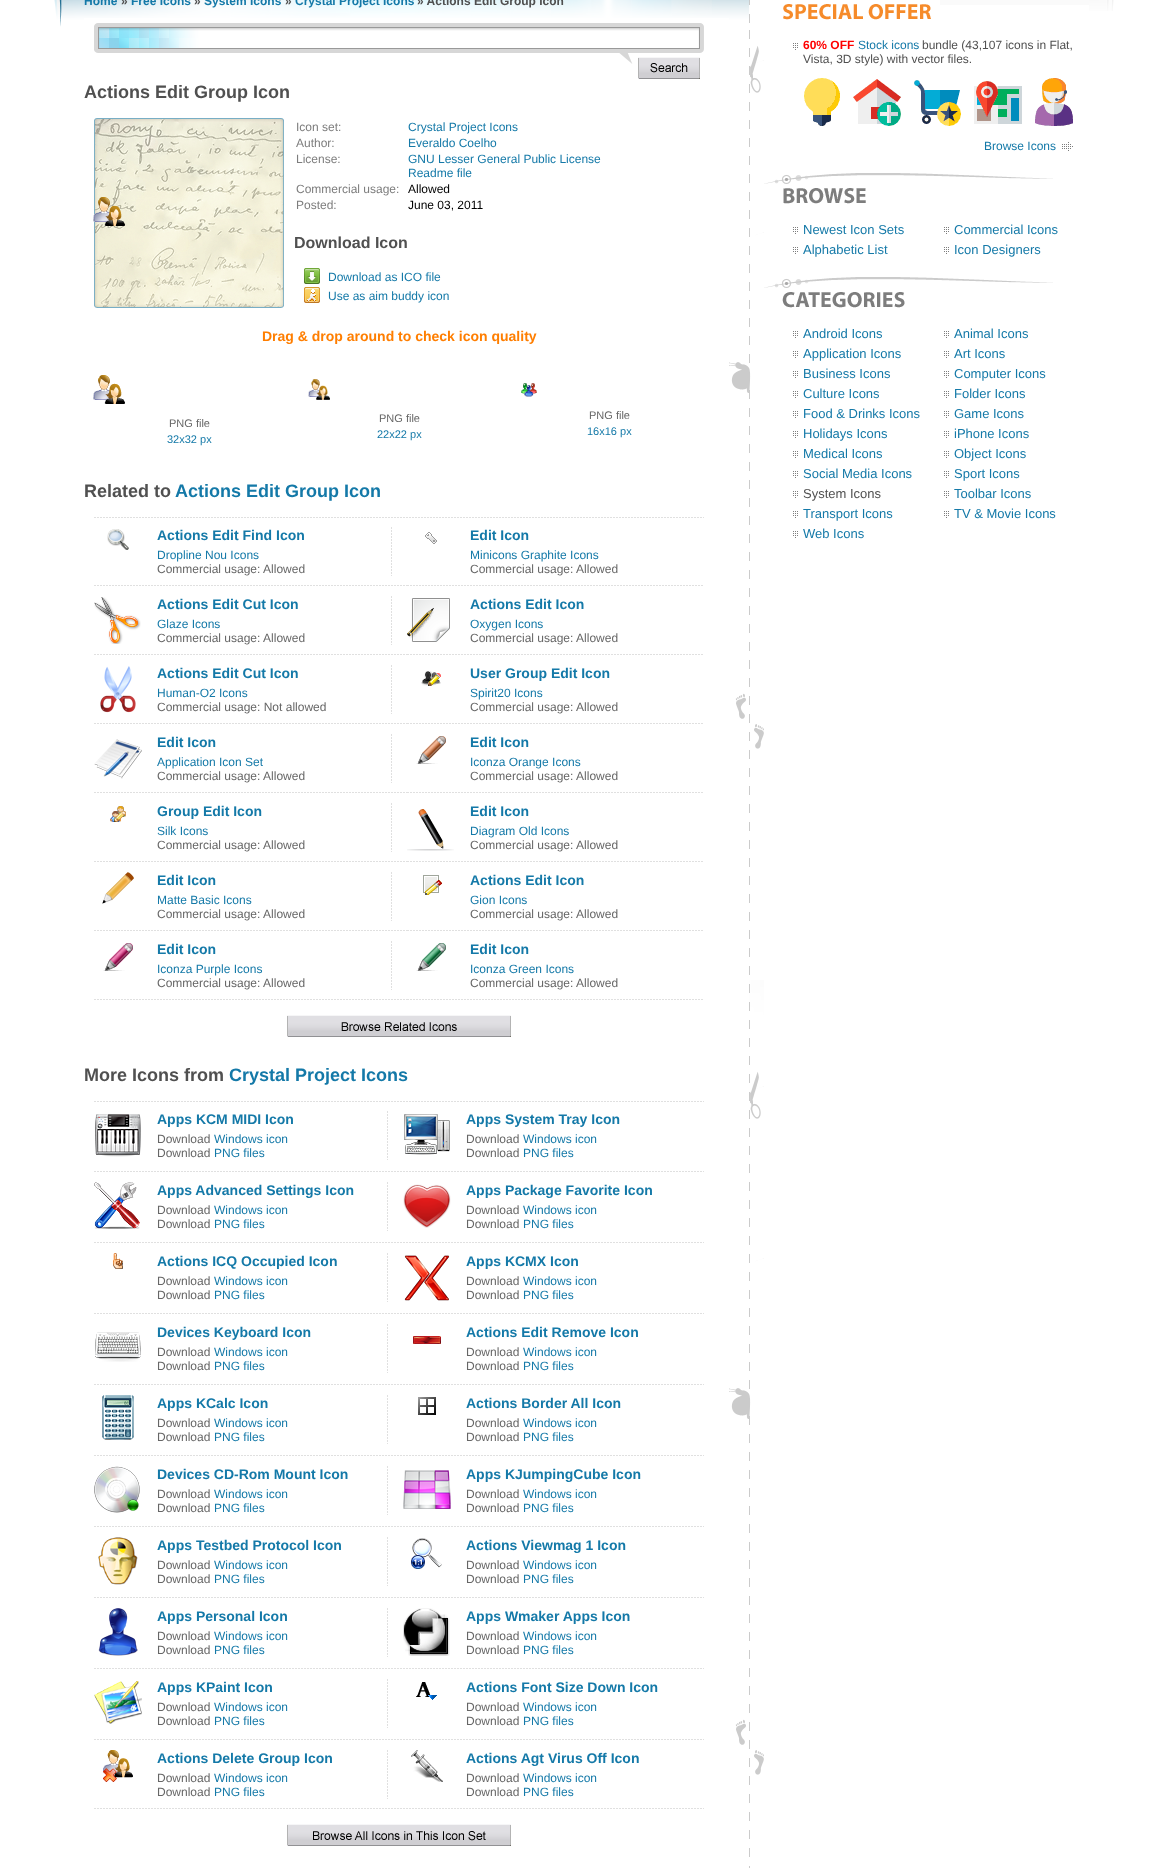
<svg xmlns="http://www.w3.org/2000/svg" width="1173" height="1868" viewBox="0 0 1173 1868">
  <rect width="100%" height="100%" fill="#ffffff"/>
  <image x="54" y="0" width="30" height="27" href="img1.png"/>
  <image x="84" y="0" width="645" height="18" href="img2.png"/>
  <text x="84" y="5" font-family="Liberation Sans" font-size="12" font-weight="bold" fill="#1479a8">Home</text>
  <text x="121" y="5" font-family="Liberation Sans" font-size="12" font-weight="bold" fill="#505050">»</text>
  <text x="131" y="5" font-family="Liberation Sans" font-size="12" font-weight="bold" fill="#1479a8">Free Icons</text>
  <text x="194" y="5" font-family="Liberation Sans" font-size="12" font-weight="bold" fill="#505050">»</text>
  <text x="204" y="5" font-family="Liberation Sans" font-size="12" font-weight="bold" fill="#1479a8">System Icons</text>
  <text x="285" y="5" font-family="Liberation Sans" font-size="12" font-weight="bold" fill="#505050">»</text>
  <text x="295" y="5" font-family="Liberation Sans" font-size="12" font-weight="bold" fill="#1479a8">Crystal Project Icons</text>
  <text x="417" y="5" font-family="Liberation Sans" font-size="12" font-weight="bold" fill="#505050">» Actions Edit Group Icon</text>
  <image x="94" y="23" width="610" height="41" href="img3.png"/>
  <image x="99" y="28" width="600" height="20" href="img4.png"/>
  <rect x="98.5" y="27.5" width="601" height="21" fill="none" stroke="#999999"/>
  <image x="638" y="57" width="62" height="22" href="img5.png"/>
  <text x="84" y="98" font-family="Liberation Sans" font-size="18" font-weight="bold" fill="#505050">Actions Edit Group Icon</text>
  <image x="94" y="118" width="190" height="190" href="img6.png"/>
  <text x="296" y="131" font-family="Liberation Sans" font-size="12" fill="#7d7d7d">Icon set:</text>
  <text x="408" y="131" font-family="Liberation Sans" font-size="12" fill="#1479a8">Crystal Project Icons</text>
  <text x="296" y="147" font-family="Liberation Sans" font-size="12" fill="#7d7d7d">Author:</text>
  <text x="408" y="147" font-family="Liberation Sans" font-size="12" fill="#1479a8">Everaldo Coelho</text>
  <text x="296" y="163" font-family="Liberation Sans" font-size="12" fill="#7d7d7d">License:</text>
  <text x="408" y="163" font-family="Liberation Sans" font-size="12" fill="#1479a8">GNU Lesser General Public License</text>
  <text x="408" y="177" font-family="Liberation Sans" font-size="12" fill="#1479a8">Readme file</text>
  <text x="296" y="193" font-family="Liberation Sans" font-size="12" fill="#7d7d7d">Commercial usage:</text>
  <text x="408" y="193" font-family="Liberation Sans" font-size="12" fill="#000000">Allowed</text>
  <text x="296" y="209" font-family="Liberation Sans" font-size="12" fill="#7d7d7d">Posted:</text>
  <text x="408" y="209" font-family="Liberation Sans" font-size="12" fill="#000000">June 03, 2011</text>
  <text x="294" y="248" font-family="Liberation Sans" font-size="16" font-weight="bold" fill="#505050">Download Icon</text>
  <image x="304" y="268" width="16" height="16" href="img7.png"/>
  <text x="328" y="281" font-family="Liberation Sans" font-size="12" fill="#1479a8">Download as ICO file</text>
  <image x="304" y="287" width="16" height="16" href="img8.png"/>
  <text x="328" y="300" font-family="Liberation Sans" font-size="12" fill="#1479a8">Use as aim buddy icon</text>
  <text x="262" y="341" font-family="Liberation Sans" font-size="14" font-weight="bold" fill="#ff7e00">Drag &amp; drop around to check icon quality</text>
  <text x="169" y="427" font-family="Liberation Sans" font-size="11" fill="#666666">PNG file</text>
  <text x="167" y="443" font-family="Liberation Sans" font-size="11" fill="#1479a8">32x32 px</text>
  <text x="379" y="422" font-family="Liberation Sans" font-size="11" fill="#666666">PNG file</text>
  <text x="377" y="438" font-family="Liberation Sans" font-size="11" fill="#1479a8">22x22 px</text>
  <text x="589" y="419" font-family="Liberation Sans" font-size="11" fill="#666666">PNG file</text>
  <text x="587" y="435" font-family="Liberation Sans" font-size="11" fill="#1479a8">16x16 px</text>
  <text x="84" y="497" font-family="Liberation Sans" font-size="18" font-weight="bold" fill="#505050">Related to</text>
  <text x="175" y="497" font-family="Liberation Sans" font-size="18" font-weight="bold" fill="#1479a8">Actions Edit Group Icon</text>
  <image x="94" y="517" width="610" height="1" href="img9.png"/>
  <image x="94" y="585" width="47" height="1" href="img10.png"/>
  <image x="107" y="529" width="22" height="21" href="img11.png"/>
  <image x="142" y="585" width="265" height="1" href="img12.png"/>
  <image x="391" y="527" width="1" height="49" href="img13.png"/>
  <text x="157" y="540" font-family="Liberation Sans" font-size="14" font-weight="bold" fill="#1479a8">Actions Edit Find Icon</text>
  <text x="157" y="559" font-family="Liberation Sans" font-size="12" fill="#1479a8">Dropline Nou Icons</text>
  <text x="157" y="573" font-family="Liberation Sans" font-size="12" fill="#666666">Commercial usage: Allowed</text>
  <image x="407" y="585" width="47" height="1" href="img10.png"/>
  <image x="425" y="532" width="12" height="12" href="img14.png"/>
  <image x="455" y="585" width="248" height="1" href="img15.png"/>
  <text x="470" y="540" font-family="Liberation Sans" font-size="14" font-weight="bold" fill="#1479a8">Edit Icon</text>
  <text x="470" y="559" font-family="Liberation Sans" font-size="12" fill="#1479a8">Minicons Graphite Icons</text>
  <text x="470" y="573" font-family="Liberation Sans" font-size="12" fill="#666666">Commercial usage: Allowed</text>
  <image x="94" y="654" width="47" height="1" href="img10.png"/>
  <image x="94" y="597" width="47" height="47" href="img16.png"/>
  <image x="142" y="654" width="265" height="1" href="img12.png"/>
  <image x="391" y="596" width="1" height="49" href="img13.png"/>
  <text x="157" y="609" font-family="Liberation Sans" font-size="14" font-weight="bold" fill="#1479a8">Actions Edit Cut Icon</text>
  <text x="157" y="628" font-family="Liberation Sans" font-size="12" fill="#1479a8">Glaze Icons</text>
  <text x="157" y="642" font-family="Liberation Sans" font-size="12" fill="#666666">Commercial usage: Allowed</text>
  <image x="407" y="654" width="47" height="1" href="img10.png"/>
  <image x="407" y="598" width="43" height="44" href="img17.png"/>
  <image x="455" y="654" width="248" height="1" href="img15.png"/>
  <text x="470" y="609" font-family="Liberation Sans" font-size="14" font-weight="bold" fill="#1479a8">Actions Edit Icon</text>
  <text x="470" y="628" font-family="Liberation Sans" font-size="12" fill="#1479a8">Oxygen Icons</text>
  <text x="470" y="642" font-family="Liberation Sans" font-size="12" fill="#666666">Commercial usage: Allowed</text>
  <image x="94" y="723" width="47" height="1" href="img10.png"/>
  <image x="100" y="666" width="36" height="47" href="img18.png"/>
  <image x="142" y="723" width="265" height="1" href="img12.png"/>
  <image x="391" y="665" width="1" height="49" href="img13.png"/>
  <text x="157" y="678" font-family="Liberation Sans" font-size="14" font-weight="bold" fill="#1479a8">Actions Edit Cut Icon</text>
  <text x="157" y="697" font-family="Liberation Sans" font-size="12" fill="#1479a8">Human-O2 Icons</text>
  <text x="157" y="711" font-family="Liberation Sans" font-size="12" fill="#666666">Commercial usage: Not allowed</text>
  <image x="407" y="723" width="47" height="1" href="img10.png"/>
  <image x="421" y="671" width="20" height="15" href="img19.png"/>
  <image x="455" y="723" width="248" height="1" href="img15.png"/>
  <text x="470" y="678" font-family="Liberation Sans" font-size="14" font-weight="bold" fill="#1479a8">User Group Edit Icon</text>
  <text x="470" y="697" font-family="Liberation Sans" font-size="12" fill="#1479a8">Spirit20 Icons</text>
  <text x="470" y="711" font-family="Liberation Sans" font-size="12" fill="#666666">Commercial usage: Allowed</text>
  <image x="94" y="792" width="47" height="1" href="img10.png"/>
  <image x="94" y="739" width="48" height="40" href="img20.png"/>
  <image x="142" y="792" width="265" height="1" href="img12.png"/>
  <image x="391" y="734" width="1" height="49" href="img13.png"/>
  <text x="157" y="747" font-family="Liberation Sans" font-size="14" font-weight="bold" fill="#1479a8">Edit Icon</text>
  <text x="157" y="766" font-family="Liberation Sans" font-size="12" fill="#1479a8">Application Icon Set</text>
  <text x="157" y="780" font-family="Liberation Sans" font-size="12" fill="#666666">Commercial usage: Allowed</text>
  <image x="407" y="792" width="47" height="1" href="img10.png"/>
  <image x="416" y="736" width="30" height="28" href="img21.png"/>
  <image x="455" y="792" width="248" height="1" href="img15.png"/>
  <text x="470" y="747" font-family="Liberation Sans" font-size="14" font-weight="bold" fill="#1479a8">Edit Icon</text>
  <text x="470" y="766" font-family="Liberation Sans" font-size="12" fill="#1479a8">Iconza Orange Icons</text>
  <text x="470" y="780" font-family="Liberation Sans" font-size="12" fill="#666666">Commercial usage: Allowed</text>
  <image x="94" y="861" width="47" height="1" href="img10.png"/>
  <image x="110" y="806" width="16" height="16" href="img22.png"/>
  <image x="142" y="861" width="265" height="1" href="img12.png"/>
  <image x="391" y="803" width="1" height="49" href="img13.png"/>
  <text x="157" y="816" font-family="Liberation Sans" font-size="14" font-weight="bold" fill="#1479a8">Group Edit Icon</text>
  <text x="157" y="835" font-family="Liberation Sans" font-size="12" fill="#1479a8">Silk Icons</text>
  <text x="157" y="849" font-family="Liberation Sans" font-size="12" fill="#666666">Commercial usage: Allowed</text>
  <image x="407" y="861" width="47" height="1" href="img10.png"/>
  <image x="407" y="809" width="47" height="42" href="img23.png"/>
  <image x="455" y="861" width="248" height="1" href="img15.png"/>
  <text x="470" y="816" font-family="Liberation Sans" font-size="14" font-weight="bold" fill="#1479a8">Edit Icon</text>
  <text x="470" y="835" font-family="Liberation Sans" font-size="12" fill="#1479a8">Diagram Old Icons</text>
  <text x="470" y="849" font-family="Liberation Sans" font-size="12" fill="#666666">Commercial usage: Allowed</text>
  <image x="94" y="930" width="47" height="1" href="img10.png"/>
  <image x="102" y="872" width="32" height="32" href="img24.png"/>
  <image x="142" y="930" width="265" height="1" href="img12.png"/>
  <image x="391" y="872" width="1" height="49" href="img13.png"/>
  <text x="157" y="885" font-family="Liberation Sans" font-size="14" font-weight="bold" fill="#1479a8">Edit Icon</text>
  <text x="157" y="904" font-family="Liberation Sans" font-size="12" fill="#1479a8">Matte Basic Icons</text>
  <text x="157" y="918" font-family="Liberation Sans" font-size="12" fill="#666666">Commercial usage: Allowed</text>
  <image x="407" y="930" width="47" height="1" href="img10.png"/>
  <image x="423" y="875" width="19" height="20" href="img25.png"/>
  <image x="455" y="930" width="248" height="1" href="img15.png"/>
  <text x="470" y="885" font-family="Liberation Sans" font-size="14" font-weight="bold" fill="#1479a8">Actions Edit Icon</text>
  <text x="470" y="904" font-family="Liberation Sans" font-size="12" fill="#1479a8">Gion Icons</text>
  <text x="470" y="918" font-family="Liberation Sans" font-size="12" fill="#666666">Commercial usage: Allowed</text>
  <image x="94" y="999" width="47" height="1" href="img10.png"/>
  <image x="103" y="943" width="30" height="28" href="img26.png"/>
  <image x="142" y="999" width="265" height="1" href="img12.png"/>
  <image x="391" y="941" width="1" height="49" href="img13.png"/>
  <text x="157" y="954" font-family="Liberation Sans" font-size="14" font-weight="bold" fill="#1479a8">Edit Icon</text>
  <text x="157" y="973" font-family="Liberation Sans" font-size="12" fill="#1479a8">Iconza Purple Icons</text>
  <text x="157" y="987" font-family="Liberation Sans" font-size="12" fill="#666666">Commercial usage: Allowed</text>
  <image x="407" y="999" width="47" height="1" href="img10.png"/>
  <image x="416" y="943" width="30" height="28" href="img27.png"/>
  <image x="455" y="999" width="248" height="1" href="img15.png"/>
  <text x="470" y="954" font-family="Liberation Sans" font-size="14" font-weight="bold" fill="#1479a8">Edit Icon</text>
  <text x="470" y="973" font-family="Liberation Sans" font-size="12" fill="#1479a8">Iconza Green Icons</text>
  <text x="470" y="987" font-family="Liberation Sans" font-size="12" fill="#666666">Commercial usage: Allowed</text>
  <image x="287" y="1015" width="224" height="22" href="img28.png"/>
  <text x="84" y="1081" font-family="Liberation Sans" font-size="18" font-weight="bold" fill="#505050">More Icons from</text>
  <text x="229" y="1081" font-family="Liberation Sans" font-size="18" font-weight="bold" fill="#1479a8">Crystal Project Icons</text>
  <image x="94" y="1101" width="610" height="1" href="img9.png"/>
  <image x="94" y="1171" width="47" height="1" href="img10.png"/>
  <image x="95" y="1114" width="46" height="43" href="img29.png"/>
  <image x="142" y="1171" width="260" height="1" href="img30.png"/>
  <image x="387" y="1111" width="1" height="49" href="img13.png"/>
  <text x="157" y="1124" font-family="Liberation Sans" font-size="14" font-weight="bold" fill="#1479a8">Apps KCM MIDI Icon</text>
  <text x="157" y="1143" font-family="Liberation Sans" font-size="12" fill="#666666">Download</text>
  <text x="214" y="1143" font-family="Liberation Sans" font-size="12" fill="#1479a8">Windows icon</text>
  <text x="157" y="1157" font-family="Liberation Sans" font-size="12" fill="#666666">Download</text>
  <text x="214" y="1157" font-family="Liberation Sans" font-size="12" fill="#1479a8">PNG files</text>
  <image x="403" y="1171" width="47" height="1" href="img10.png"/>
  <image x="404" y="1114" width="46" height="41" href="img31.png"/>
  <image x="451" y="1171" width="253" height="1" href="img32.png"/>
  <text x="466" y="1124" font-family="Liberation Sans" font-size="14" font-weight="bold" fill="#1479a8">Apps System Tray Icon</text>
  <text x="466" y="1143" font-family="Liberation Sans" font-size="12" fill="#666666">Download</text>
  <text x="523" y="1143" font-family="Liberation Sans" font-size="12" fill="#1479a8">Windows icon</text>
  <text x="466" y="1157" font-family="Liberation Sans" font-size="12" fill="#666666">Download</text>
  <text x="523" y="1157" font-family="Liberation Sans" font-size="12" fill="#1479a8">PNG files</text>
  <image x="94" y="1242" width="47" height="1" href="img10.png"/>
  <image x="94" y="1182" width="46" height="47" href="img33.png"/>
  <image x="142" y="1242" width="260" height="1" href="img30.png"/>
  <image x="387" y="1182" width="1" height="49" href="img13.png"/>
  <text x="157" y="1195" font-family="Liberation Sans" font-size="14" font-weight="bold" fill="#1479a8">Apps Advanced Settings Icon</text>
  <text x="157" y="1214" font-family="Liberation Sans" font-size="12" fill="#666666">Download</text>
  <text x="214" y="1214" font-family="Liberation Sans" font-size="12" fill="#1479a8">Windows icon</text>
  <text x="157" y="1228" font-family="Liberation Sans" font-size="12" fill="#666666">Download</text>
  <text x="214" y="1228" font-family="Liberation Sans" font-size="12" fill="#1479a8">PNG files</text>
  <image x="403" y="1242" width="47" height="1" href="img10.png"/>
  <image x="403" y="1184" width="48" height="44" href="img34.png"/>
  <image x="451" y="1242" width="253" height="1" href="img32.png"/>
  <text x="466" y="1195" font-family="Liberation Sans" font-size="14" font-weight="bold" fill="#1479a8">Apps Package Favorite Icon</text>
  <text x="466" y="1214" font-family="Liberation Sans" font-size="12" fill="#666666">Download</text>
  <text x="523" y="1214" font-family="Liberation Sans" font-size="12" fill="#1479a8">Windows icon</text>
  <text x="466" y="1228" font-family="Liberation Sans" font-size="12" fill="#666666">Download</text>
  <text x="523" y="1228" font-family="Liberation Sans" font-size="12" fill="#1479a8">PNG files</text>
  <image x="94" y="1313" width="47" height="1" href="img10.png"/>
  <image x="113" y="1253" width="10" height="16" href="img35.png"/>
  <image x="142" y="1313" width="260" height="1" href="img30.png"/>
  <image x="387" y="1253" width="1" height="49" href="img13.png"/>
  <text x="157" y="1266" font-family="Liberation Sans" font-size="14" font-weight="bold" fill="#1479a8">Actions ICQ Occupied Icon</text>
  <text x="157" y="1285" font-family="Liberation Sans" font-size="12" fill="#666666">Download</text>
  <text x="214" y="1285" font-family="Liberation Sans" font-size="12" fill="#1479a8">Windows icon</text>
  <text x="157" y="1299" font-family="Liberation Sans" font-size="12" fill="#666666">Download</text>
  <text x="214" y="1299" font-family="Liberation Sans" font-size="12" fill="#1479a8">PNG files</text>
  <image x="403" y="1313" width="47" height="1" href="img10.png"/>
  <image x="404" y="1255" width="46" height="46" href="img36.png"/>
  <image x="451" y="1313" width="253" height="1" href="img32.png"/>
  <text x="466" y="1266" font-family="Liberation Sans" font-size="14" font-weight="bold" fill="#1479a8">Apps KCMX Icon</text>
  <text x="466" y="1285" font-family="Liberation Sans" font-size="12" fill="#666666">Download</text>
  <text x="523" y="1285" font-family="Liberation Sans" font-size="12" fill="#1479a8">Windows icon</text>
  <text x="466" y="1299" font-family="Liberation Sans" font-size="12" fill="#666666">Download</text>
  <text x="523" y="1299" font-family="Liberation Sans" font-size="12" fill="#1479a8">PNG files</text>
  <image x="94" y="1384" width="47" height="1" href="img10.png"/>
  <image x="95" y="1332" width="46" height="30" href="img37.png"/>
  <image x="142" y="1384" width="260" height="1" href="img30.png"/>
  <image x="387" y="1324" width="1" height="49" href="img13.png"/>
  <text x="157" y="1337" font-family="Liberation Sans" font-size="14" font-weight="bold" fill="#1479a8">Devices Keyboard Icon</text>
  <text x="157" y="1356" font-family="Liberation Sans" font-size="12" fill="#666666">Download</text>
  <text x="214" y="1356" font-family="Liberation Sans" font-size="12" fill="#1479a8">Windows icon</text>
  <text x="157" y="1370" font-family="Liberation Sans" font-size="12" fill="#666666">Download</text>
  <text x="214" y="1370" font-family="Liberation Sans" font-size="12" fill="#1479a8">PNG files</text>
  <image x="403" y="1384" width="47" height="1" href="img10.png"/>
  <image x="413" y="1336" width="28" height="8" href="img38.png"/>
  <image x="451" y="1384" width="253" height="1" href="img32.png"/>
  <text x="466" y="1337" font-family="Liberation Sans" font-size="14" font-weight="bold" fill="#1479a8">Actions Edit Remove Icon</text>
  <text x="466" y="1356" font-family="Liberation Sans" font-size="12" fill="#666666">Download</text>
  <text x="523" y="1356" font-family="Liberation Sans" font-size="12" fill="#1479a8">Windows icon</text>
  <text x="466" y="1370" font-family="Liberation Sans" font-size="12" fill="#666666">Download</text>
  <text x="523" y="1370" font-family="Liberation Sans" font-size="12" fill="#1479a8">PNG files</text>
  <image x="94" y="1455" width="47" height="1" href="img10.png"/>
  <image x="102" y="1395" width="32" height="45" href="img39.png"/>
  <image x="142" y="1455" width="260" height="1" href="img30.png"/>
  <image x="387" y="1395" width="1" height="49" href="img13.png"/>
  <text x="157" y="1408" font-family="Liberation Sans" font-size="14" font-weight="bold" fill="#1479a8">Apps KCalc Icon</text>
  <text x="157" y="1427" font-family="Liberation Sans" font-size="12" fill="#666666">Download</text>
  <text x="214" y="1427" font-family="Liberation Sans" font-size="12" fill="#1479a8">Windows icon</text>
  <text x="157" y="1441" font-family="Liberation Sans" font-size="12" fill="#666666">Download</text>
  <text x="214" y="1441" font-family="Liberation Sans" font-size="12" fill="#1479a8">PNG files</text>
  <image x="403" y="1455" width="47" height="1" href="img10.png"/>
  <image x="418" y="1397" width="18" height="18" href="img40.png"/>
  <image x="451" y="1455" width="253" height="1" href="img32.png"/>
  <text x="466" y="1408" font-family="Liberation Sans" font-size="14" font-weight="bold" fill="#1479a8">Actions Border All Icon</text>
  <text x="466" y="1427" font-family="Liberation Sans" font-size="12" fill="#666666">Download</text>
  <text x="523" y="1427" font-family="Liberation Sans" font-size="12" fill="#1479a8">Windows icon</text>
  <text x="466" y="1441" font-family="Liberation Sans" font-size="12" fill="#666666">Download</text>
  <text x="523" y="1441" font-family="Liberation Sans" font-size="12" fill="#1479a8">PNG files</text>
  <image x="94" y="1526" width="47" height="1" href="img10.png"/>
  <image x="94" y="1466" width="46" height="47" href="img41.png"/>
  <image x="142" y="1526" width="260" height="1" href="img30.png"/>
  <image x="387" y="1466" width="1" height="49" href="img13.png"/>
  <text x="157" y="1479" font-family="Liberation Sans" font-size="14" font-weight="bold" fill="#1479a8">Devices CD-Rom Mount Icon</text>
  <text x="157" y="1498" font-family="Liberation Sans" font-size="12" fill="#666666">Download</text>
  <text x="214" y="1498" font-family="Liberation Sans" font-size="12" fill="#1479a8">Windows icon</text>
  <text x="157" y="1512" font-family="Liberation Sans" font-size="12" fill="#666666">Download</text>
  <text x="214" y="1512" font-family="Liberation Sans" font-size="12" fill="#1479a8">PNG files</text>
  <image x="403" y="1526" width="47" height="1" href="img10.png"/>
  <image x="403" y="1470" width="48" height="39" href="img42.png"/>
  <image x="451" y="1526" width="253" height="1" href="img32.png"/>
  <text x="466" y="1479" font-family="Liberation Sans" font-size="14" font-weight="bold" fill="#1479a8">Apps KJumpingCube Icon</text>
  <text x="466" y="1498" font-family="Liberation Sans" font-size="12" fill="#666666">Download</text>
  <text x="523" y="1498" font-family="Liberation Sans" font-size="12" fill="#1479a8">Windows icon</text>
  <text x="466" y="1512" font-family="Liberation Sans" font-size="12" fill="#666666">Download</text>
  <text x="523" y="1512" font-family="Liberation Sans" font-size="12" fill="#1479a8">PNG files</text>
  <image x="94" y="1597" width="47" height="1" href="img10.png"/>
  <image x="98" y="1537" width="40" height="48" href="img43.png"/>
  <image x="142" y="1597" width="260" height="1" href="img30.png"/>
  <image x="387" y="1537" width="1" height="49" href="img13.png"/>
  <text x="157" y="1550" font-family="Liberation Sans" font-size="14" font-weight="bold" fill="#1479a8">Apps Testbed Protocol Icon</text>
  <text x="157" y="1569" font-family="Liberation Sans" font-size="12" fill="#666666">Download</text>
  <text x="214" y="1569" font-family="Liberation Sans" font-size="12" fill="#1479a8">Windows icon</text>
  <text x="157" y="1583" font-family="Liberation Sans" font-size="12" fill="#666666">Download</text>
  <text x="214" y="1583" font-family="Liberation Sans" font-size="12" fill="#1479a8">PNG files</text>
  <image x="403" y="1597" width="47" height="1" href="img10.png"/>
  <image x="411" y="1538" width="31" height="31" href="img44.png"/>
  <image x="451" y="1597" width="253" height="1" href="img32.png"/>
  <text x="466" y="1550" font-family="Liberation Sans" font-size="14" font-weight="bold" fill="#1479a8">Actions Viewmag 1 Icon</text>
  <text x="466" y="1569" font-family="Liberation Sans" font-size="12" fill="#666666">Download</text>
  <text x="523" y="1569" font-family="Liberation Sans" font-size="12" fill="#1479a8">Windows icon</text>
  <text x="466" y="1583" font-family="Liberation Sans" font-size="12" fill="#666666">Download</text>
  <text x="523" y="1583" font-family="Liberation Sans" font-size="12" fill="#1479a8">PNG files</text>
  <image x="94" y="1668" width="47" height="1" href="img10.png"/>
  <image x="98" y="1608" width="40" height="48" href="img45.png"/>
  <image x="142" y="1668" width="260" height="1" href="img30.png"/>
  <image x="387" y="1608" width="1" height="49" href="img13.png"/>
  <text x="157" y="1621" font-family="Liberation Sans" font-size="14" font-weight="bold" fill="#1479a8">Apps Personal Icon</text>
  <text x="157" y="1640" font-family="Liberation Sans" font-size="12" fill="#666666">Download</text>
  <text x="214" y="1640" font-family="Liberation Sans" font-size="12" fill="#1479a8">Windows icon</text>
  <text x="157" y="1654" font-family="Liberation Sans" font-size="12" fill="#666666">Download</text>
  <text x="214" y="1654" font-family="Liberation Sans" font-size="12" fill="#1479a8">PNG files</text>
  <image x="403" y="1668" width="47" height="1" href="img10.png"/>
  <image x="403" y="1608" width="47" height="48" href="img46.png"/>
  <image x="451" y="1668" width="253" height="1" href="img32.png"/>
  <text x="466" y="1621" font-family="Liberation Sans" font-size="14" font-weight="bold" fill="#1479a8">Apps Wmaker Apps Icon</text>
  <text x="466" y="1640" font-family="Liberation Sans" font-size="12" fill="#666666">Download</text>
  <text x="523" y="1640" font-family="Liberation Sans" font-size="12" fill="#1479a8">Windows icon</text>
  <text x="466" y="1654" font-family="Liberation Sans" font-size="12" fill="#666666">Download</text>
  <text x="523" y="1654" font-family="Liberation Sans" font-size="12" fill="#1479a8">PNG files</text>
  <image x="94" y="1739" width="47" height="1" href="img10.png"/>
  <image x="94" y="1681" width="48" height="43" href="img47.png"/>
  <image x="142" y="1739" width="260" height="1" href="img30.png"/>
  <image x="387" y="1679" width="1" height="49" href="img13.png"/>
  <text x="157" y="1692" font-family="Liberation Sans" font-size="14" font-weight="bold" fill="#1479a8">Apps KPaint Icon</text>
  <text x="157" y="1711" font-family="Liberation Sans" font-size="12" fill="#666666">Download</text>
  <text x="214" y="1711" font-family="Liberation Sans" font-size="12" fill="#1479a8">Windows icon</text>
  <text x="157" y="1725" font-family="Liberation Sans" font-size="12" fill="#666666">Download</text>
  <text x="214" y="1725" font-family="Liberation Sans" font-size="12" fill="#1479a8">PNG files</text>
  <image x="403" y="1739" width="47" height="1" href="img10.png"/>
  <image x="416" y="1682" width="21" height="18" href="img48.png"/>
  <image x="451" y="1739" width="253" height="1" href="img32.png"/>
  <text x="466" y="1692" font-family="Liberation Sans" font-size="14" font-weight="bold" fill="#1479a8">Actions Font Size Down Icon</text>
  <text x="466" y="1711" font-family="Liberation Sans" font-size="12" fill="#666666">Download</text>
  <text x="523" y="1711" font-family="Liberation Sans" font-size="12" fill="#1479a8">Windows icon</text>
  <text x="466" y="1725" font-family="Liberation Sans" font-size="12" fill="#666666">Download</text>
  <text x="523" y="1725" font-family="Liberation Sans" font-size="12" fill="#1479a8">PNG files</text>
  <image x="94" y="1808" width="47" height="1" href="img10.png"/>
  <image x="103" y="1750" width="30" height="32" href="img49.png"/>
  <image x="142" y="1808" width="260" height="1" href="img30.png"/>
  <image x="387" y="1750" width="1" height="49" href="img13.png"/>
  <text x="157" y="1763" font-family="Liberation Sans" font-size="14" font-weight="bold" fill="#1479a8">Actions Delete Group Icon</text>
  <text x="157" y="1782" font-family="Liberation Sans" font-size="12" fill="#666666">Download</text>
  <text x="214" y="1782" font-family="Liberation Sans" font-size="12" fill="#1479a8">Windows icon</text>
  <text x="157" y="1796" font-family="Liberation Sans" font-size="12" fill="#666666">Download</text>
  <text x="214" y="1796" font-family="Liberation Sans" font-size="12" fill="#1479a8">PNG files</text>
  <image x="403" y="1808" width="47" height="1" href="img10.png"/>
  <image x="411" y="1750" width="32" height="32" href="img50.png"/>
  <image x="451" y="1808" width="253" height="1" href="img32.png"/>
  <text x="466" y="1763" font-family="Liberation Sans" font-size="14" font-weight="bold" fill="#1479a8">Actions Agt Virus Off Icon</text>
  <text x="466" y="1782" font-family="Liberation Sans" font-size="12" fill="#666666">Download</text>
  <text x="523" y="1782" font-family="Liberation Sans" font-size="12" fill="#1479a8">Windows icon</text>
  <text x="466" y="1796" font-family="Liberation Sans" font-size="12" fill="#666666">Download</text>
  <text x="523" y="1796" font-family="Liberation Sans" font-size="12" fill="#1479a8">PNG files</text>
  <image x="287" y="1824" width="224" height="22" href="img51.png"/>
  <image x="729" y="0" width="35" height="1868" href="img52.png"/>
  <image x="729" y="0" width="21" height="23" href="img53.png"/>
  <image x="1089" y="0" width="25" height="11" href="img54.png"/>
  <rect x="940" y="0" width="149" height="5" fill="#fafafa"/>
  <image x="783" y="4" width="148" height="16" href="img55.png"/>
  <image x="793" y="43" width="5" height="7" href="img56.png"/>
  <text x="803" y="49" font-family="Liberation Sans" font-size="12" font-weight="bold" fill="#ff0000">60% OFF</text>
  <text x="858" y="49" font-family="Liberation Sans" font-size="12" fill="#1479a8">Stock icons</text>
  <text x="922" y="49" font-family="Liberation Sans" font-size="12" fill="#505050">bundle (43,107 icons in Flat,</text>
  <text x="803" y="63" font-family="Liberation Sans" font-size="12" fill="#505050">Vista, 3D style) with vector files.</text>
  <image x="804" y="78" width="269" height="48" href="img57.png"/>
  <text x="984" y="150" font-family="Liberation Sans" font-size="12" fill="#1479a8">Browse Icons</text>
  <image x="1062" y="142" width="11" height="9" href="img58.png"/>
  <image x="764" y="173" width="289" height="31" href="img59.png"/>
  <image x="793" y="227" width="5" height="7" href="img56.png"/>
  <text x="803" y="234" font-family="Liberation Sans" font-size="13" fill="#1479a8">Newest Icon Sets</text>
  <image x="944" y="227" width="5" height="7" href="img56.png"/>
  <text x="954" y="234" font-family="Liberation Sans" font-size="13" fill="#1479a8">Commercial Icons</text>
  <image x="793" y="247" width="5" height="7" href="img56.png"/>
  <text x="803" y="254" font-family="Liberation Sans" font-size="13" fill="#1479a8">Alphabetic List</text>
  <image x="944" y="247" width="5" height="7" href="img56.png"/>
  <text x="954" y="254" font-family="Liberation Sans" font-size="13" fill="#1479a8">Icon Designers</text>
  <image x="764" y="277" width="289" height="31" href="img60.png"/>
  <image x="793" y="331" width="5" height="7" href="img56.png"/>
  <text x="803" y="338" font-family="Liberation Sans" font-size="13" fill="#1479a8">Android Icons</text>
  <image x="944" y="331" width="5" height="7" href="img56.png"/>
  <text x="954" y="338" font-family="Liberation Sans" font-size="13" fill="#1479a8">Animal Icons</text>
  <image x="793" y="351" width="5" height="7" href="img56.png"/>
  <text x="803" y="358" font-family="Liberation Sans" font-size="13" fill="#1479a8">Application Icons</text>
  <image x="944" y="351" width="5" height="7" href="img56.png"/>
  <text x="954" y="358" font-family="Liberation Sans" font-size="13" fill="#1479a8">Art Icons</text>
  <image x="793" y="371" width="5" height="7" href="img56.png"/>
  <text x="803" y="378" font-family="Liberation Sans" font-size="13" fill="#1479a8">Business Icons</text>
  <image x="944" y="371" width="5" height="7" href="img56.png"/>
  <text x="954" y="378" font-family="Liberation Sans" font-size="13" fill="#1479a8">Computer Icons</text>
  <image x="793" y="391" width="5" height="7" href="img56.png"/>
  <text x="803" y="398" font-family="Liberation Sans" font-size="13" fill="#1479a8">Culture Icons</text>
  <image x="944" y="391" width="5" height="7" href="img56.png"/>
  <text x="954" y="398" font-family="Liberation Sans" font-size="13" fill="#1479a8">Folder Icons</text>
  <image x="793" y="411" width="5" height="7" href="img56.png"/>
  <text x="803" y="418" font-family="Liberation Sans" font-size="13" fill="#1479a8">Food &amp; Drinks Icons</text>
  <image x="944" y="411" width="5" height="7" href="img56.png"/>
  <text x="954" y="418" font-family="Liberation Sans" font-size="13" fill="#1479a8">Game Icons</text>
  <image x="793" y="431" width="5" height="7" href="img56.png"/>
  <text x="803" y="438" font-family="Liberation Sans" font-size="13" fill="#1479a8">Holidays Icons</text>
  <image x="944" y="431" width="5" height="7" href="img56.png"/>
  <text x="954" y="438" font-family="Liberation Sans" font-size="13" fill="#1479a8">iPhone Icons</text>
  <image x="793" y="451" width="5" height="7" href="img56.png"/>
  <text x="803" y="458" font-family="Liberation Sans" font-size="13" fill="#1479a8">Medical Icons</text>
  <image x="944" y="451" width="5" height="7" href="img56.png"/>
  <text x="954" y="458" font-family="Liberation Sans" font-size="13" fill="#1479a8">Object Icons</text>
  <image x="793" y="471" width="5" height="7" href="img56.png"/>
  <text x="803" y="478" font-family="Liberation Sans" font-size="13" fill="#1479a8">Social Media Icons</text>
  <image x="944" y="471" width="5" height="7" href="img56.png"/>
  <text x="954" y="478" font-family="Liberation Sans" font-size="13" fill="#1479a8">Sport Icons</text>
  <image x="793" y="491" width="5" height="7" href="img56.png"/>
  <text x="803" y="498" font-family="Liberation Sans" font-size="13" fill="#505050">System Icons</text>
  <image x="944" y="491" width="5" height="7" href="img56.png"/>
  <text x="954" y="498" font-family="Liberation Sans" font-size="13" fill="#1479a8">Toolbar Icons</text>
  <image x="793" y="511" width="5" height="7" href="img56.png"/>
  <text x="803" y="518" font-family="Liberation Sans" font-size="13" fill="#1479a8">Transport Icons</text>
  <image x="944" y="511" width="5" height="7" href="img56.png"/>
  <text x="954" y="518" font-family="Liberation Sans" font-size="13" fill="#1479a8">TV &amp; Movie Icons</text>
  <image x="793" y="531" width="5" height="7" href="img56.png"/>
  <text x="803" y="538" font-family="Liberation Sans" font-size="13" fill="#1479a8">Web Icons</text>
  <image x="93" y="197" width="32" height="29" href="img61.png"/>
  <image x="93" y="375" width="32" height="29" href="img62.png"/>
  <image x="308" y="379" width="22" height="21" href="img63.png"/>
  <image x="521" y="383" width="16" height="14" href="img64.png"/>
</svg>
